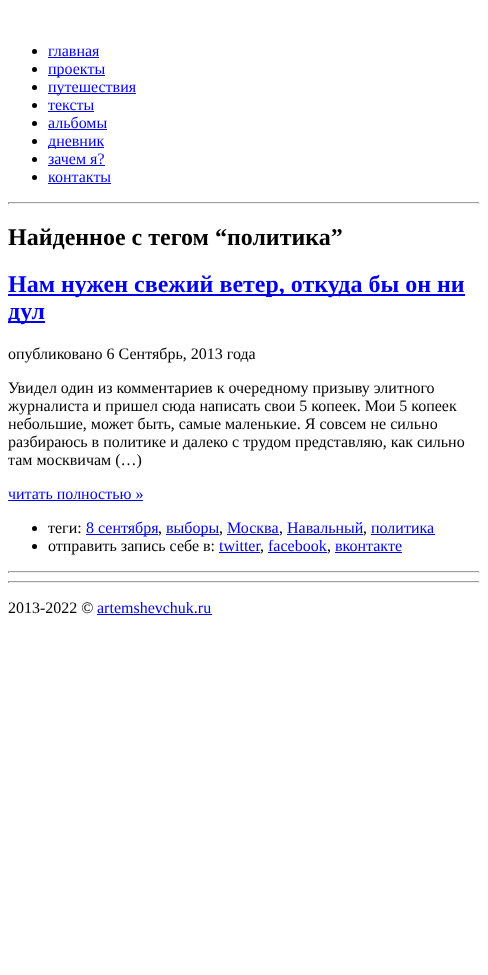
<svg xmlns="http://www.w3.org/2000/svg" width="488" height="975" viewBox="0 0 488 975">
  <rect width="100%" height="100%" fill="#ffffff"/>
  <circle cx="34.5" cy="51.5" r="2.5" fill="#000000"/>
  <text x="48" y="56" font-family="Liberation Serif" font-size="16" fill="#0000ee">главная</text>
  <rect x="48" y="57" width="51" height="1" fill="#0000ee"/>
  <circle cx="34.5" cy="69.5" r="2.5" fill="#000000"/>
  <rect x="48" y="75" width="57" height="1" fill="#0000ee"/>
  <text x="48" y="74" font-family="Liberation Serif" font-size="16" fill="#0000ee">проекты</text>
  <circle cx="34.5" cy="87.5" r="2.5" fill="#000000"/>
  <rect x="48" y="93" width="88" height="1" fill="#0000ee"/>
  <text x="48" y="92" font-family="Liberation Serif" font-size="16" fill="#0000ee">путешествия</text>
  <circle cx="34.5" cy="105.5" r="2.5" fill="#000000"/>
  <text x="48" y="110" font-family="Liberation Serif" font-size="16" fill="#0000ee">тексты</text>
  <rect x="48" y="111" width="46" height="1" fill="#0000ee"/>
  <circle cx="34.5" cy="123.5" r="2.5" fill="#000000"/>
  <text x="48" y="128" font-family="Liberation Serif" font-size="16" fill="#0000ee">альбомы</text>
  <rect x="48" y="129" width="59" height="1" fill="#0000ee"/>
  <circle cx="34.5" cy="141.5" r="2.5" fill="#000000"/>
  <rect x="48" y="147" width="56" height="1" fill="#0000ee"/>
  <text x="48" y="146" font-family="Liberation Serif" font-size="16" fill="#0000ee">дневник</text>
  <circle cx="34.5" cy="159.5" r="2.5" fill="#000000"/>
  <text x="48" y="164" font-family="Liberation Serif" font-size="16" fill="#0000ee">зачем я?</text>
  <rect x="48" y="165" width="57" height="1" fill="#0000ee"/>
  <circle cx="34.5" cy="177.5" r="2.5" fill="#000000"/>
  <text x="48" y="182" font-family="Liberation Serif" font-size="16" fill="#0000ee">контакты</text>
  <rect x="48" y="183" width="63" height="1" fill="#0000ee"/>
  <rect x="8" y="202" width="472" height="1" fill="#9f9f9f"/>
  <rect x="479" y="202" width="1" height="2" fill="#eeeeee"/>
  <rect x="8" y="203" width="472" height="1" fill="#eeeeee"/>
  <rect x="8" y="202" width="1" height="2" fill="#9f9f9f"/>
  <text x="8" y="245" font-family="Liberation Serif" font-size="24" font-weight="bold" fill="#000000">Найденное с тегом “политика”</text>
  <rect x="8" y="294" width="457" height="2" fill="#0000ee"/>
  <text x="8" y="292" font-family="Liberation Serif" font-size="24" font-weight="bold" fill="#0000ee">Нам нужен свежий ветер, откуда бы он ни</text>
  <rect x="8" y="321" width="37" height="2" fill="#0000ee"/>
  <text x="8" y="319" font-family="Liberation Serif" font-size="24" font-weight="bold" fill="#0000ee">дул</text>
  <text x="8" y="359" font-family="Liberation Serif" font-size="16" fill="#000000">опубликовано 6 Сентябрь, 2013 года</text>
  <text x="8" y="393" font-family="Liberation Serif" font-size="16" fill="#000000">Увидел один из комментариев к очередному призыву элитного</text>
  <text x="8" y="411" font-family="Liberation Serif" font-size="16" fill="#000000">журналиста и пришел сюда написать свои 5 копеек. Мои 5 копеек</text>
  <text x="8" y="429" font-family="Liberation Serif" font-size="16" fill="#000000">небольшие, может быть, самые маленькие. Я совсем не сильно</text>
  <text x="8" y="447" font-family="Liberation Serif" font-size="16" fill="#000000">разбираюсь в политике и далеко с трудом представляю, как сильно</text>
  <text x="8" y="465" font-family="Liberation Serif" font-size="16" fill="#000000">там москвичам (…)</text>
  <text x="8" y="499" font-family="Liberation Serif" font-size="16" fill="#0000ee">читать полностью »</text>
  <rect x="8" y="500" width="135" height="1" fill="#0000ee"/>
  <circle cx="34.5" cy="528.5" r="2.5" fill="#000000"/>
  <text x="48" y="533" font-family="Liberation Serif" font-size="16" fill="#000000">теги:</text>
  <rect x="86" y="534" width="72" height="1" fill="#0000ee"/>
  <text x="86" y="533" font-family="Liberation Serif" font-size="16" fill="#0000ee">8 сентября</text>
  <rect x="166" y="534" width="53" height="1" fill="#0000ee"/>
  <text x="166" y="533" font-family="Liberation Serif" font-size="16" fill="#0000ee">выборы</text>
  <text x="227" y="533" font-family="Liberation Serif" font-size="16" fill="#0000ee">Москва</text>
  <rect x="227" y="534" width="52" height="1" fill="#0000ee"/>
  <text x="287" y="533" font-family="Liberation Serif" font-size="16" fill="#0000ee">Навальный</text>
  <rect x="287" y="534" width="76" height="1" fill="#0000ee"/>
  <text x="371" y="533" font-family="Liberation Serif" font-size="16" fill="#0000ee">политика</text>
  <rect x="371" y="534" width="64" height="1" fill="#0000ee"/>
  <text x="158" y="533" font-family="Liberation Serif" font-size="16" fill="#000000">,</text>
  <text x="219" y="533" font-family="Liberation Serif" font-size="16" fill="#000000">,</text>
  <text x="279" y="533" font-family="Liberation Serif" font-size="16" fill="#000000">,</text>
  <text x="363" y="533" font-family="Liberation Serif" font-size="16" fill="#000000">,</text>
  <circle cx="34.5" cy="546.5" r="2.5" fill="#000000"/>
  <text x="48" y="551" font-family="Liberation Serif" font-size="16" fill="#000000">отправить запись себе в:</text>
  <text x="219" y="551" font-family="Liberation Serif" font-size="16" fill="#0000ee">twitter</text>
  <rect x="219" y="552" width="41" height="1" fill="#0000ee"/>
  <text x="268" y="551" font-family="Liberation Serif" font-size="16" fill="#0000ee">facebook</text>
  <rect x="268" y="552" width="59" height="1" fill="#0000ee"/>
  <text x="335" y="551" font-family="Liberation Serif" font-size="16" fill="#0000ee">вконтакте</text>
  <rect x="335" y="552" width="67" height="1" fill="#0000ee"/>
  <text x="260" y="551" font-family="Liberation Serif" font-size="16" fill="#000000">,</text>
  <text x="327" y="551" font-family="Liberation Serif" font-size="16" fill="#000000">,</text>
  <rect x="8" y="571" width="472" height="1" fill="#9f9f9f"/>
  <rect x="479" y="571" width="1" height="2" fill="#eeeeee"/>
  <rect x="8" y="572" width="472" height="1" fill="#eeeeee"/>
  <rect x="8" y="571" width="1" height="2" fill="#9f9f9f"/>
  <rect x="8" y="581" width="472" height="1" fill="#9f9f9f"/>
  <rect x="479" y="581" width="1" height="2" fill="#eeeeee"/>
  <rect x="8" y="582" width="472" height="1" fill="#eeeeee"/>
  <rect x="8" y="581" width="1" height="2" fill="#9f9f9f"/>
  <text x="8" y="613" font-family="Liberation Serif" font-size="16" fill="#000000">2013-2022 ©</text>
  <text x="97" y="613" font-family="Liberation Serif" font-size="16" fill="#0000ee">artemshevchuk.ru</text>
  <rect x="97" y="614" width="115" height="1" fill="#0000ee"/>
</svg>
